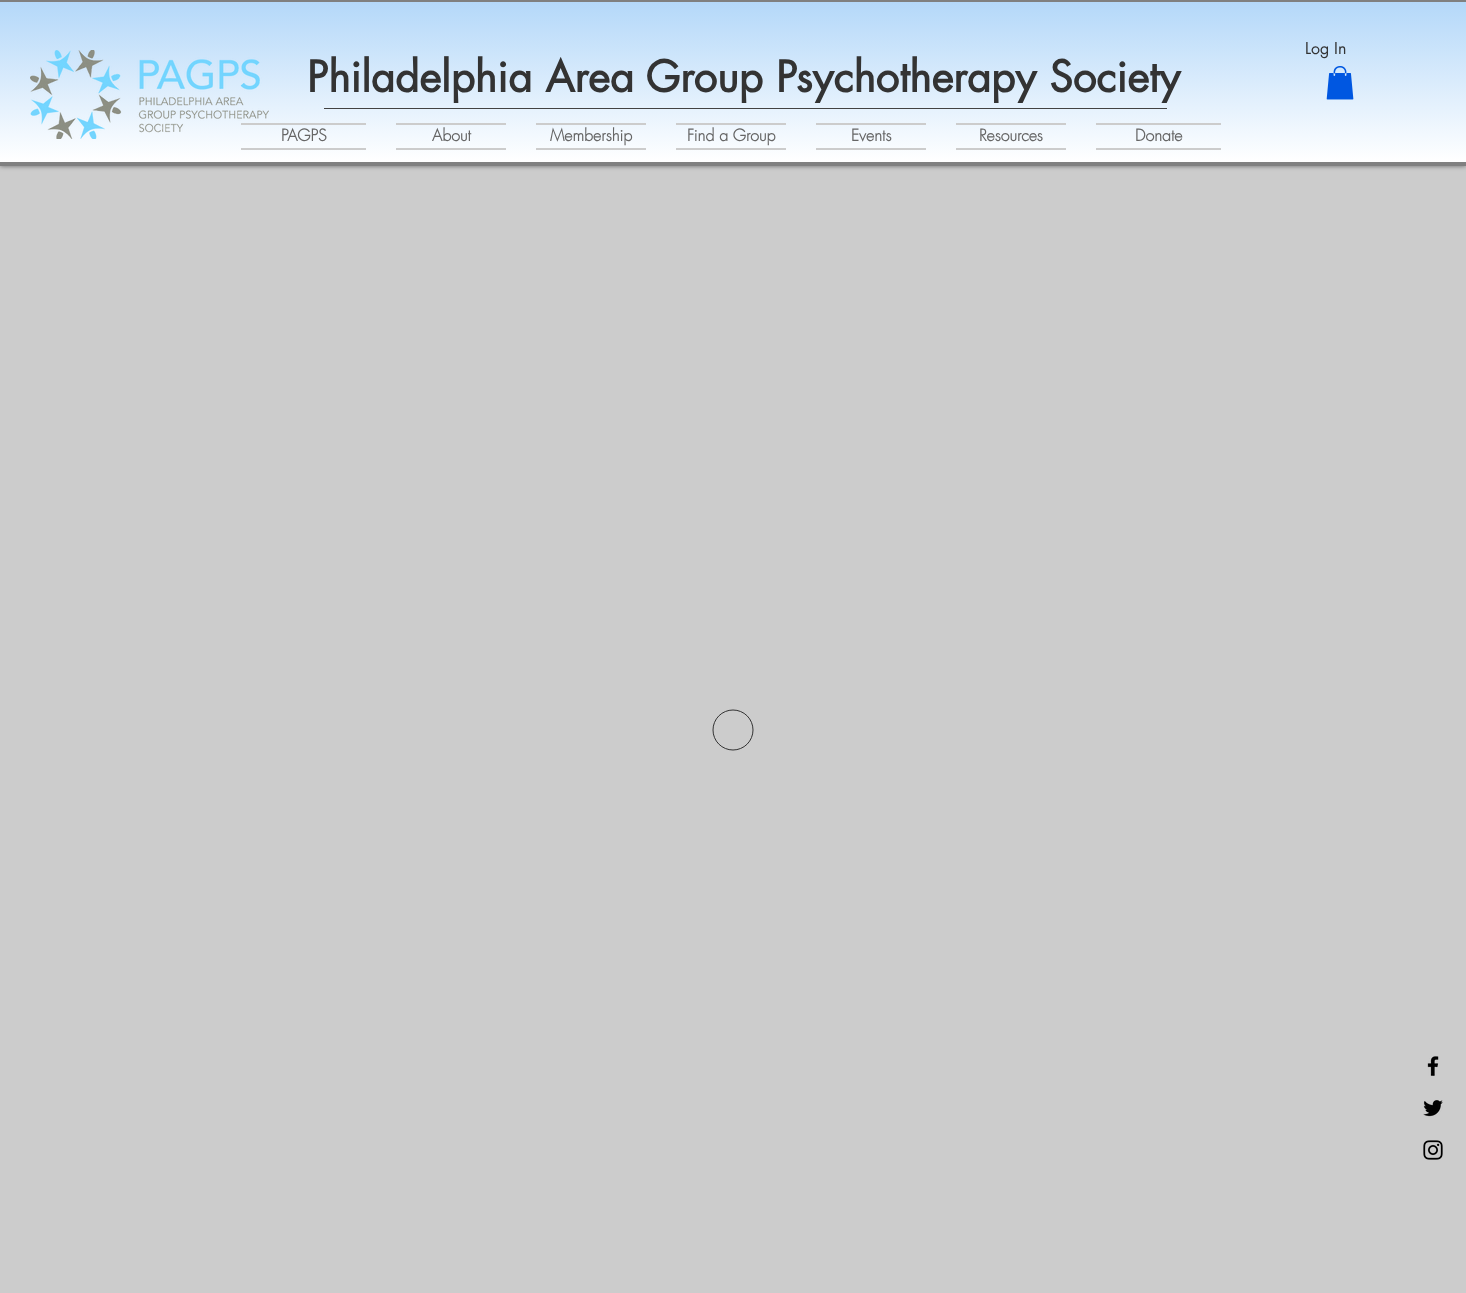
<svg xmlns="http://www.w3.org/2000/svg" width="1466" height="1293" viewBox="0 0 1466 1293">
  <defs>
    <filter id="blur1" x="-50%" y="-200%" width="200%" height="500%"><feGaussianBlur stdDeviation="2.5"/></filter>
    <linearGradient id="g1" gradientUnits="userSpaceOnUse" x1="733" y1="2" x2="733" y2="162"><stop offset="0" stop-color="#b4d8f9"/><stop offset="1" stop-color="#ffffff"/></linearGradient>
  </defs>
  <rect width="100%" height="100%" fill="#cccccc"/>
  <rect x="0" y="0" width="1466" height="166" fill="#000000" fill-opacity="0.5" filter="url(#blur1)"/>
  <rect x="0" y="0" width="1466" height="2" fill="#808080"/>
  <rect x="0" y="162" width="1466" height="4" fill="#808080"/>
  <rect x="0" y="2" width="1466" height="160" fill="url(#g1)"/>
  <rect x="241" y="123" width="125" height="2" fill="#cccccc"/>
  <image x="30" y="50" width="239" height="89" href="img1.png"/>
  <text x="1305" y="54" font-family="futura" font-size="16" fill="#333333">Log In</text>
  <text x="307" y="92" font-family="futura" font-size="42" font-weight="bold" fill="#333333">Philadelphia Area Group Psychotherapy Society</text>
  <image x="1326" y="66" width="28" height="34" href="img2.png"/>
  <rect x="324" y="108" width="843" height="1" fill="#424242"/>
  <rect x="241" y="148" width="125" height="2" fill="#cccccc"/>
  <text x="281" y="141" font-family="'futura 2'" font-size="16" font-weight="bold" fill="#666666">PAGPS</text>
  <rect x="396" y="123" width="110" height="2" fill="#cccccc"/>
  <rect x="396" y="148" width="110" height="2" fill="#cccccc"/>
  <text x="432" y="141" font-family="'futura 2'" font-size="16" font-weight="bold" fill="#666666">About</text>
  <rect x="536" y="123" width="110" height="2" fill="#cccccc"/>
  <rect x="536" y="148" width="110" height="2" fill="#cccccc"/>
  <text x="550" y="141" font-family="'futura 2'" font-size="16" font-weight="bold" fill="#666666">Membership</text>
  <rect x="676" y="123" width="110" height="2" fill="#cccccc"/>
  <rect x="676" y="148" width="110" height="2" fill="#cccccc"/>
  <text x="687" y="141" font-family="'futura 2'" font-size="16" font-weight="bold" fill="#666666">Find a Group</text>
  <rect x="816" y="123" width="110" height="2" fill="#cccccc"/>
  <rect x="816" y="148" width="110" height="2" fill="#cccccc"/>
  <text x="851" y="141" font-family="'futura 2'" font-size="16" font-weight="bold" fill="#666666">Events</text>
  <rect x="956" y="123" width="110" height="2" fill="#cccccc"/>
  <rect x="956" y="148" width="110" height="2" fill="#cccccc"/>
  <text x="979" y="141" font-family="'futura 2'" font-size="16" font-weight="bold" fill="#666666">Resources</text>
  <rect x="1096" y="123" width="125" height="2" fill="#cccccc"/>
  <rect x="1096" y="148" width="125" height="2" fill="#cccccc"/>
  <text x="1135" y="141" font-family="'futura 2'" font-size="16" font-weight="bold" fill="#666666">Donate</text>
  <circle cx="733" cy="730" r="20" fill="none" stroke="#333333"/>
  <image x="1427" y="1056" width="12" height="20" href="img3.png"/>
  <image x="1423" y="1100" width="20" height="17" href="img4.png"/>
  <image x="1423" y="1140" width="20" height="20" href="img5.png"/>
</svg>
